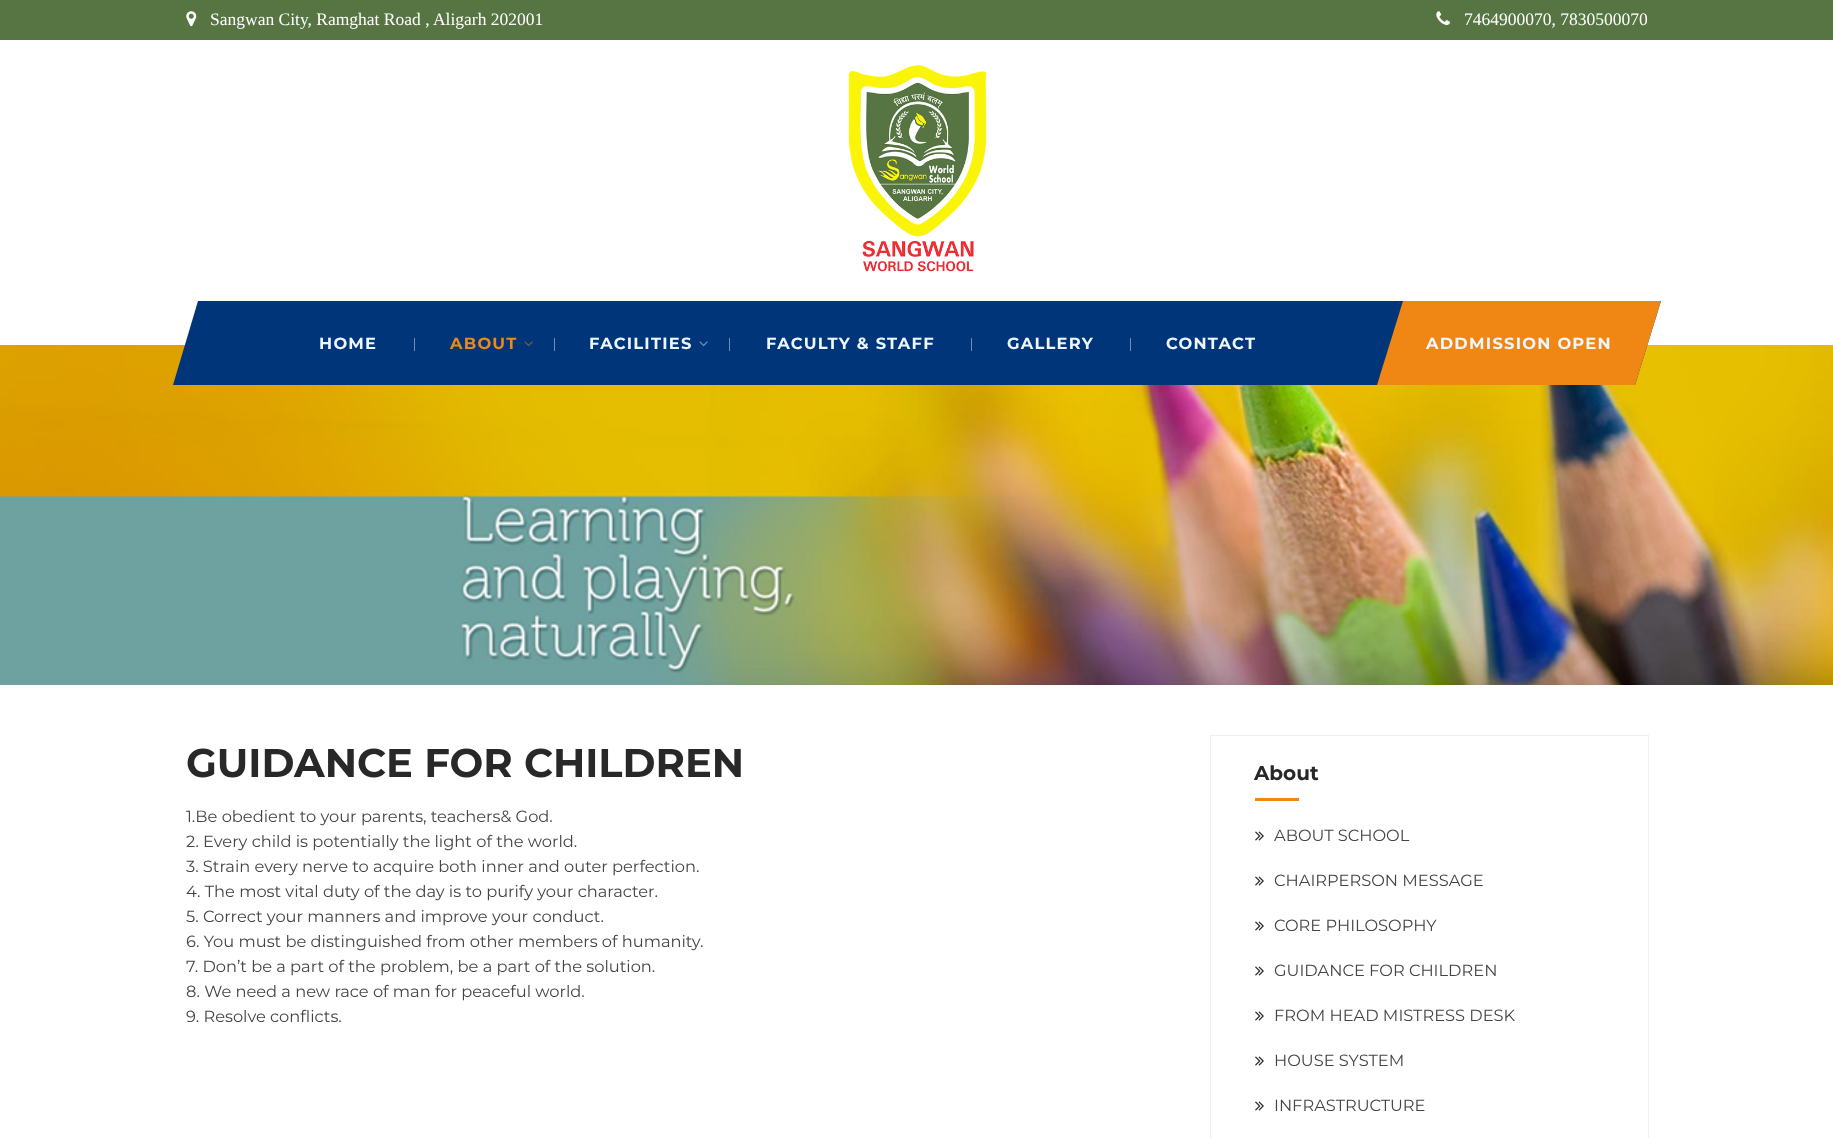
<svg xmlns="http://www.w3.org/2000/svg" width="1833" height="1138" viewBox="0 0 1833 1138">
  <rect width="100%" height="100%" fill="#ffffff"/>
  <rect x="0" y="0" width="1833" height="40" fill="#577542"/>
  <image x="186" y="11" width="11" height="16" href="img1.png"/>
  <text x="210" y="25" font-family="Liberation Serif" font-size="17.5" fill="#ffffff">Sangwan City, Ramghat Road , Aligarh 202001</text>
  <image x="1436" y="11" width="14" height="14" href="img2.png"/>
  <text x="1464" y="25" font-family="Liberation Serif" font-size="17.5" fill="#ffffff">7464900070, 7830500070</text>
  <image x="848" y="65" width="139" height="207" href="img3.png"/>
  <image x="0" y="345" width="1833" height="340" href="img6.png"/>
  <path d="M198 301H1661L1635 385H173Z" fill="#003579"/>
  <text x="319" y="349" font-family="Montserrat" font-size="16.25" font-weight="bold" letter-spacing="1.25" fill="#edf6fc">HOME</text>
  <rect x="414" y="338" width="1" height="13" fill="#6f8eb6"/>
  <text x="450" y="349" font-family="Montserrat" font-size="16.25" font-weight="bold" letter-spacing="1.25" fill="#f08714">ABOUT</text>
  <image x="524" y="341" width="9" height="6" href="img4.png"/>
  <rect x="554" y="338" width="1" height="13" fill="#6f8eb6"/>
  <text x="589" y="349" font-family="Montserrat" font-size="16.25" font-weight="bold" letter-spacing="1.25" fill="#edf6fc">FACILITIES</text>
  <image x="699" y="341" width="9" height="6" href="img5.png"/>
  <rect x="729" y="338" width="1" height="13" fill="#6f8eb6"/>
  <text x="766" y="349" font-family="Montserrat" font-size="16.25" font-weight="bold" letter-spacing="1.25" fill="#edf6fc">FACULTY &amp; STAFF</text>
  <rect x="971" y="338" width="1" height="13" fill="#6f8eb6"/>
  <text x="1007" y="349" font-family="Montserrat" font-size="16.25" font-weight="bold" letter-spacing="1.25" fill="#edf6fc">GALLERY</text>
  <rect x="1130" y="338" width="1" height="13" fill="#6f8eb6"/>
  <text x="1166" y="349" font-family="Montserrat" font-size="16.25" font-weight="bold" letter-spacing="1.25" fill="#edf6fc">CONTACT</text>
  <path d="M1403 301H1661L1635 385H1377Z" fill="#f08714"/>
  <text x="1426" y="349" font-family="Montserrat" font-size="16.25" font-weight="bold" letter-spacing="1.25" fill="#edf6fc">ADDMISSION OPEN</text>
  <text x="186" y="777" font-family="Montserrat" font-size="40" font-weight="bold" fill="#282828">GUIDANCE FOR CHILDREN</text>
  <text x="186" y="822" font-family="Montserrat" font-size="16.25" fill="#444444">1.Be obedient to your parents, teachers&amp; God.</text>
  <text x="186" y="847" font-family="Montserrat" font-size="16.25" fill="#444444">2. Every child is potentially the light of the world.</text>
  <text x="186" y="872" font-family="Montserrat" font-size="16.25" fill="#444444">3. Strain every nerve to acquire both inner and outer perfection.</text>
  <text x="186" y="897" font-family="Montserrat" font-size="16.25" fill="#444444">4. The most vital duty of the day is to purify your character.</text>
  <text x="186" y="922" font-family="Montserrat" font-size="16.25" fill="#444444">5. Correct your manners and improve your conduct.</text>
  <text x="186" y="947" font-family="Montserrat" font-size="16.25" fill="#444444">6. You must be distinguished from other members of humanity.</text>
  <text x="186" y="972" font-family="Montserrat" font-size="16.25" fill="#444444">7. Don’t be a part of the problem, be a part of the solution.</text>
  <text x="186" y="997" font-family="Montserrat" font-size="16.25" fill="#444444">8. We need a new race of man for peaceful world.</text>
  <text x="186" y="1022" font-family="Montserrat" font-size="16.25" fill="#444444">9. Resolve conflicts.</text>
  <rect x="1210.5" y="735.5" width="438" height="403" fill="none" stroke="#eeeff5"/>
  <text x="1254" y="780" font-family="Montserrat" font-size="20" font-weight="bold" fill="#282828">About</text>
  <rect x="1255" y="798" width="44" height="3" fill="#f08714"/>
  <image x="1255" y="831" width="9" height="10" href="img7.png"/>
  <text x="1274" y="841" font-family="Montserrat" font-size="16.25" fill="#444444">ABOUT SCHOOL</text>
  <image x="1255" y="876" width="9" height="10" href="img7.png"/>
  <text x="1274" y="886" font-family="Montserrat" font-size="16.25" fill="#444444">CHAIRPERSON MESSAGE</text>
  <image x="1255" y="921" width="9" height="10" href="img7.png"/>
  <text x="1274" y="931" font-family="Montserrat" font-size="16.25" fill="#444444">CORE PHILOSOPHY</text>
  <image x="1255" y="966" width="9" height="10" href="img7.png"/>
  <text x="1274" y="976" font-family="Montserrat" font-size="16.25" fill="#444444">GUIDANCE FOR CHILDREN</text>
  <image x="1255" y="1011" width="9" height="10" href="img7.png"/>
  <text x="1274" y="1021" font-family="Montserrat" font-size="16.25" fill="#444444">FROM HEAD MISTRESS DESK</text>
  <image x="1255" y="1056" width="9" height="10" href="img7.png"/>
  <text x="1274" y="1066" font-family="Montserrat" font-size="16.25" fill="#444444">HOUSE SYSTEM</text>
  <image x="1255" y="1101" width="9" height="10" href="img7.png"/>
  <text x="1274" y="1111" font-family="Montserrat" font-size="16.25" fill="#444444">INFRASTRUCTURE</text>
</svg>
